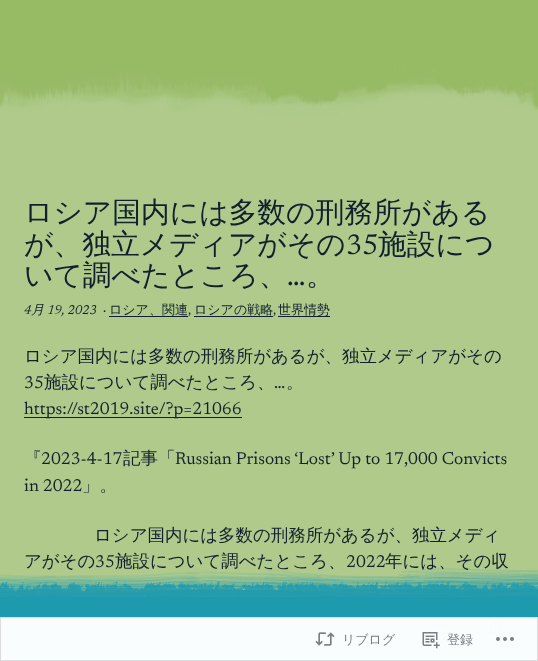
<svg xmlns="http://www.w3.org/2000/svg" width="538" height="661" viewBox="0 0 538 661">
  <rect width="100%" height="100%" fill="#97ba65"/>
  <image x="0" y="64" width="538" height="533" href="img1.png"/>
  <text x="24" y="222" font-family="WenQuanYi Zen Hei" font-size="28.75" font-weight="500" fill="#11202e">ロシア国内には多数の刑務所がある</text>
  <text x="24" y="254" font-family="WenQuanYi Zen Hei" font-size="28.75" font-weight="500" fill="#11202e">が、独立メディアがその</text>
  <text x="346" y="254" font-family="Newsreader" font-size="28.75" fill="#11202e">35</text>
  <text x="378" y="254" font-family="WenQuanYi Zen Hei" font-size="28.75" font-weight="500" fill="#11202e">施設につ</text>
  <text x="24" y="285" font-family="WenQuanYi Zen Hei" font-size="28.75" font-weight="500" fill="#11202e">いて調べたところ、</text>
  <text x="287" y="285" font-family="Newsreader" font-size="28.75" fill="#11202e">…</text>
  <text x="306" y="285" font-family="WenQuanYi Zen Hei" font-size="28.75" font-weight="500" fill="#11202e">。</text>
  <text x="24" y="314" font-family="Newsreader" font-size="13" font-style="italic" fill="#11202e">4</text>
  <text x="31" y="314" font-family="WenQuanYi Zen Hei" font-size="13" font-weight="500" font-style="italic" fill="#11202e">月</text>
  <text x="47" y="314" font-family="Newsreader" font-size="13" font-style="italic" fill="#11202e">19, 2023</text>
  <text x="103" y="314" font-family="Newsreader" font-size="13" font-weight="500" fill="#11202e">·</text>
  <text x="109" y="314" font-family="WenQuanYi Zen Hei" font-size="13" font-weight="500" fill="#11202e">ロシア、関連</text>
  <rect x="109" y="316" width="79" height="1" fill="#11202e"/>
  <text x="194" y="314" font-family="WenQuanYi Zen Hei" font-size="13" font-weight="500" fill="#11202e">ロシアの戦略</text>
  <rect x="194" y="316" width="79" height="1" fill="#11202e"/>
  <text x="278" y="314" font-family="WenQuanYi Zen Hei" font-size="13" font-weight="500" fill="#11202e">世界情勢</text>
  <rect x="278" y="316" width="52" height="1" fill="#11202e"/>
  <text x="188" y="314" font-family="Newsreader" font-size="13" font-weight="500" fill="#11202e">,</text>
  <text x="273" y="314" font-family="Newsreader" font-size="13" font-weight="500" fill="#11202e">,</text>
  <text x="24" y="362" font-family="WenQuanYi Zen Hei" font-size="17.45" font-weight="500" fill="#11202e">ロシア国内には多数の刑務所があるが、独立メディアがその</text>
  <text x="24" y="388" font-family="Newsreader" font-size="17.45" fill="#11202e">35</text>
  <text x="44" y="388" font-family="WenQuanYi Zen Hei" font-size="17.45" font-weight="500" fill="#11202e">施設について調べたところ、</text>
  <text x="274" y="388" font-family="Newsreader" font-size="17.45" fill="#11202e">…</text>
  <text x="286" y="388" font-family="WenQuanYi Zen Hei" font-size="17.45" font-weight="500" fill="#11202e">。</text>
  <rect x="24" y="417" width="218" height="1" fill="#11202e"/>
  <text x="24" y="414" font-family="Newsreader" font-size="17.45" fill="#11202e">https://st2019.site/?p=21066</text>
  <text x="24" y="464" font-family="WenQuanYi Zen Hei" font-size="17.45" font-weight="500" fill="#11202e">『</text>
  <text x="41" y="464" font-family="Newsreader" font-size="17.45" fill="#11202e">2023-4-17</text>
  <text x="123" y="464" font-family="WenQuanYi Zen Hei" font-size="17.45" font-weight="500" fill="#11202e">記事「</text>
  <text x="175" y="464" font-family="Newsreader" font-size="17.45" fill="#11202e">Russian Prisons ‘Lost’ Up to 17,000 Convicts</text>
  <text x="24" y="491" font-family="Newsreader" font-size="17.45" fill="#11202e">in 2022</text>
  <text x="82" y="491" font-family="WenQuanYi Zen Hei" font-size="17.45" font-weight="500" fill="#11202e">」。</text>
  <text x="94" y="541" font-family="WenQuanYi Zen Hei" font-size="17.45" font-weight="500" fill="#11202e">ロシア国内には多数の刑務所があるが、独立メディ</text>
  <text x="24" y="567" font-family="WenQuanYi Zen Hei" font-size="17.45" font-weight="500" fill="#11202e">アがその</text>
  <text x="95" y="567" font-family="Newsreader" font-size="17.45" fill="#11202e">35</text>
  <text x="115" y="567" font-family="WenQuanYi Zen Hei" font-size="17.45" font-weight="500" fill="#11202e">施設について調べたところ、</text>
  <text x="346" y="567" font-family="Newsreader" font-size="17.45" fill="#11202e">2022</text>
  <text x="385" y="567" font-family="WenQuanYi Zen Hei" font-size="17.45" font-weight="500" fill="#11202e">年には、その収</text>
  <rect x="0" y="597" width="538" height="64" fill="#1e9aae"/>
  <image x="0" y="568" width="538" height="29" href="img2.png"/>
  <rect x="435" y="625" width="16" height="1" fill="#11202e"/>
  <rect x="435" y="632" width="16" height="2" fill="#11202e"/>
  <image x="486" y="622" width="16" height="15" href="img3.png"/>
  <rect x="0" y="617" width="538" height="44" fill="#ffffff" fill-opacity="0.98"/>
  <rect x="0.5" y="617.5" width="537" height="43" fill="none" stroke="#dcdcde" stroke-opacity="0.98"/>
  <image x="315" y="632" width="20" height="14" href="img4.png"/>
  <text x="342" y="644" font-family="WenQuanYi Zen Hei" font-size="13" font-weight="500" fill="#767d83">リブログ</text>
  <image x="422" y="632" width="18" height="17" href="img5.png"/>
  <text x="447" y="644" font-family="WenQuanYi Zen Hei" font-size="13" font-weight="500" fill="#767d83">登録</text>
  <image x="496" y="637" width="18" height="4" href="img6.png"/>
</svg>
